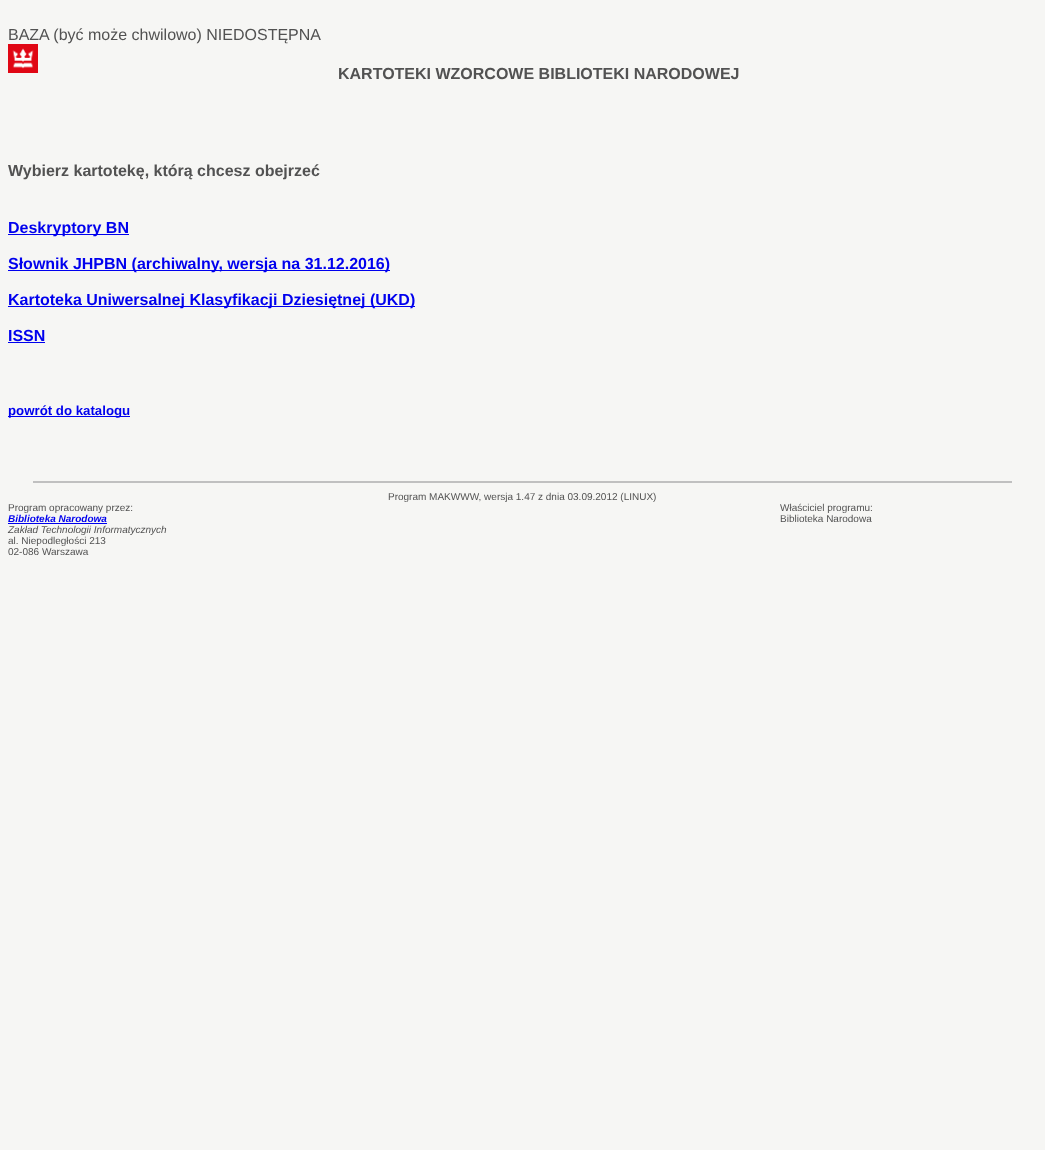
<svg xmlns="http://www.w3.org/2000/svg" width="1045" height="1150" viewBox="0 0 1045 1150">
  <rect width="100%" height="100%" fill="#f6f6f4"/>
  <text x="8" y="40" font-family="Liberation Sans" font-size="16" fill="#525252">BAZA (być może chwilowo) NIEDOSTĘPNA</text>
  <image x="8" y="44" width="30" height="29" href="img1.png"/>
  <text x="338" y="79" font-family="Liberation Sans" font-size="16" font-weight="bold" fill="#525252">KARTOTEKI WZORCOWE BIBLIOTEKI NARODOWEJ</text>
  <text x="8" y="176" font-family="Liberation Sans" font-size="16" font-weight="bold" fill="#525252">Wybierz kartotekę, którą chcesz obejrzeć</text>
  <rect x="8" y="234" width="121" height="1" fill="#0000ee"/>
  <text x="8" y="233" font-family="Liberation Sans" font-size="16" font-weight="bold" fill="#0000ee">Deskryptory BN</text>
  <rect x="8" y="270" width="382" height="1" fill="#0000ee"/>
  <text x="8" y="269" font-family="Liberation Sans" font-size="16" font-weight="bold" fill="#0000ee">Słownik JHPBN (archiwalny, wersja na 31.12.2016)</text>
  <rect x="8" y="306" width="407" height="1" fill="#0000ee"/>
  <text x="8" y="305" font-family="Liberation Sans" font-size="16" font-weight="bold" fill="#0000ee">Kartoteka Uniwersalnej Klasyfikacji Dziesiętnej (UKD)</text>
  <text x="8" y="341" font-family="Liberation Sans" font-size="16" font-weight="bold" fill="#0000ee">ISSN</text>
  <rect x="8" y="342" width="37" height="1" fill="#0000ee"/>
  <rect x="8" y="416" width="122" height="1" fill="#0000ee"/>
  <text x="8" y="415" font-family="Liberation Sans" font-size="13.25" font-weight="bold" fill="#0000ee">powrót do katalogu</text>
  <rect x="33" y="481" width="979" height="2" fill="#c0c0c0"/>
  <text x="388" y="500" font-family="Liberation Sans" font-size="10" fill="#525252">Program MAKWWW, wersja 1.47 z dnia 03.09.2012 (LINUX)</text>
  <text x="8" y="511" font-family="Liberation Sans" font-size="10" fill="#525252">Program opracowany przez:</text>
  <text x="780" y="511" font-family="Liberation Sans" font-size="10" fill="#525252">Właściciel programu:</text>
  <text x="8" y="522" font-family="Liberation Sans" font-size="10" font-weight="bold" font-style="italic" fill="#0000ee">Biblioteka Narodowa</text>
  <rect x="8" y="523" width="99" height="1" fill="#0000ee"/>
  <text x="780" y="522" font-family="Liberation Sans" font-size="10" fill="#525252">Biblioteka Narodowa</text>
  <text x="8" y="533" font-family="Liberation Sans" font-size="10" font-style="italic" fill="#525252">Zakład Technologii Informatycznych</text>
  <text x="8" y="544" font-family="Liberation Sans" font-size="10" fill="#525252">al. Niepodległości 213</text>
  <text x="8" y="555" font-family="Liberation Sans" font-size="10" fill="#525252">02-086 Warszawa</text>
</svg>
